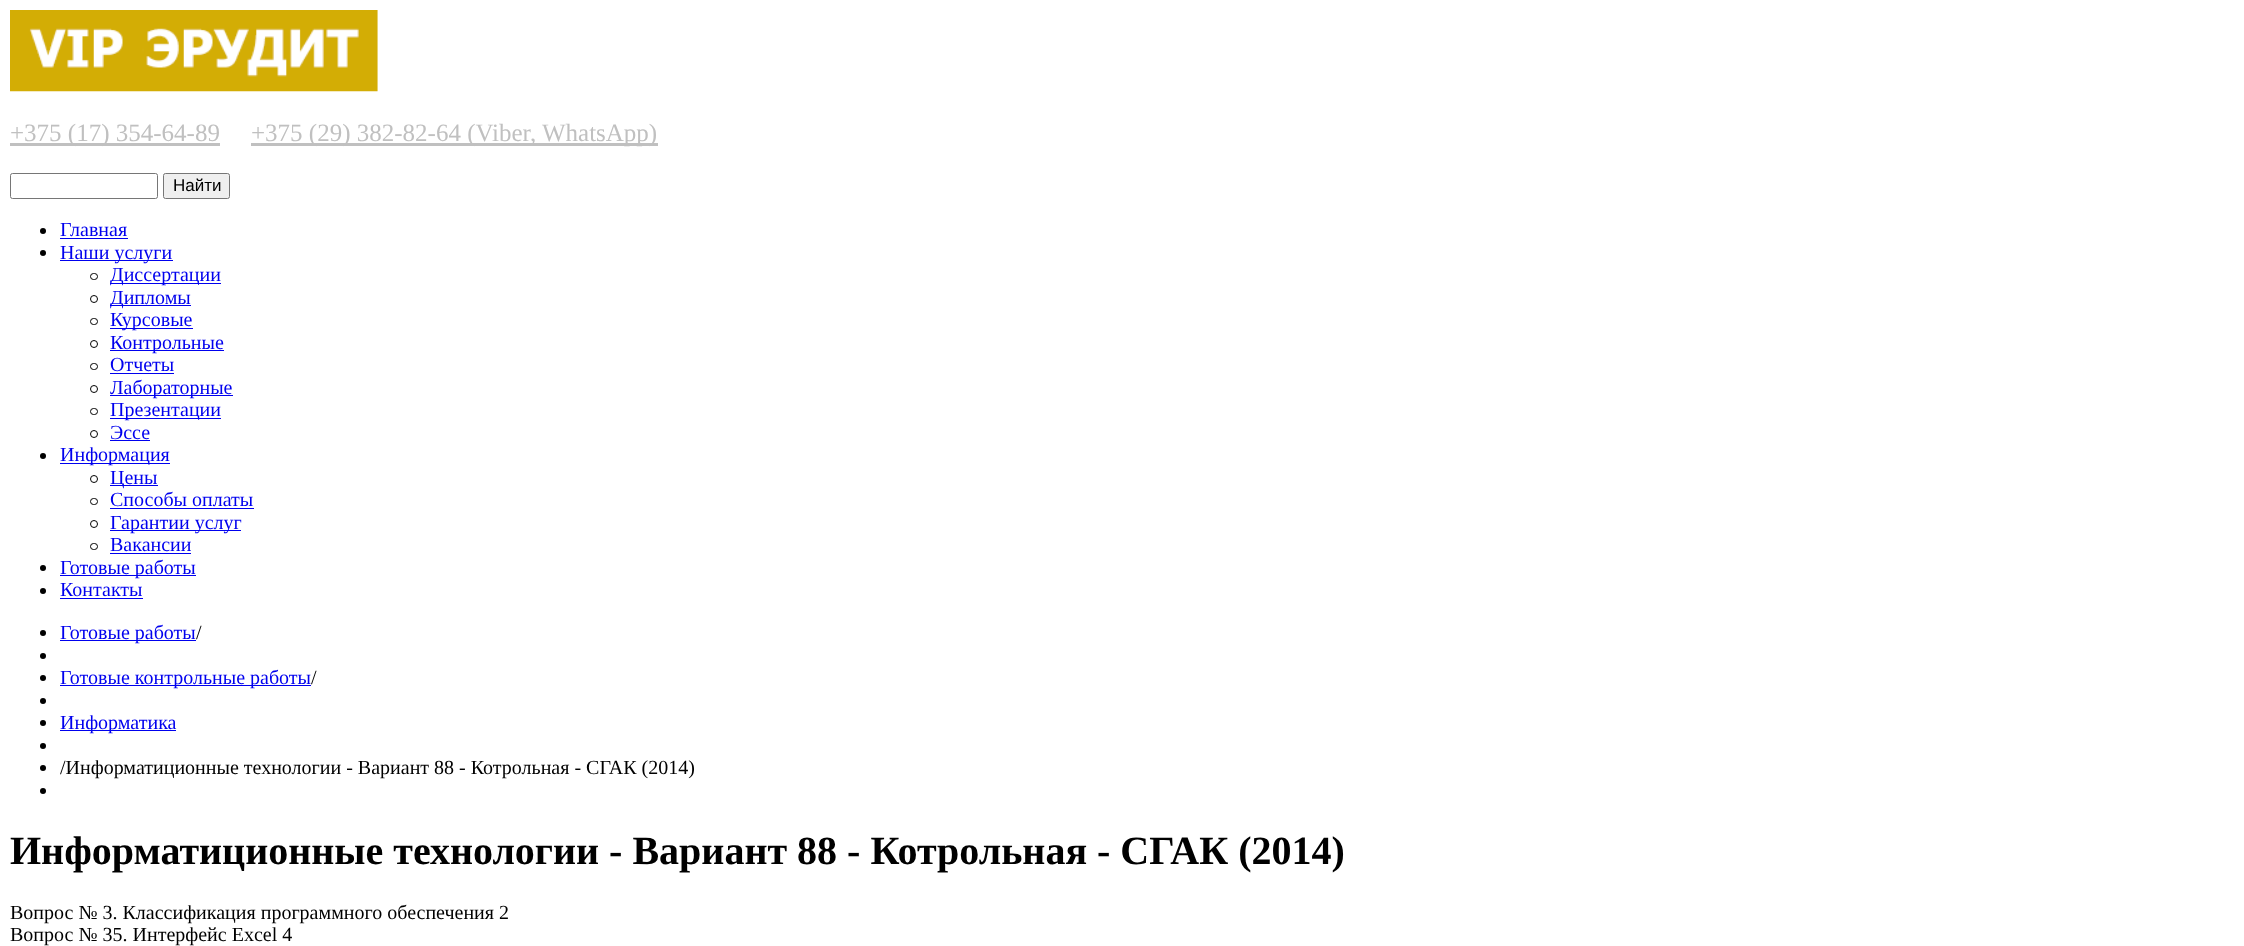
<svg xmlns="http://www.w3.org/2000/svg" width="2244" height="946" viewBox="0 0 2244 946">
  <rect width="100%" height="100%" fill="#ffffff"/>
  <image x="10" y="10" width="368" height="82" href="img1.png"/>
  <rect x="10" y="143" width="210" height="3" fill="#c0c0c0"/>
  <text x="10" y="141" font-family="Liberation Serif" font-size="25" fill="#c0c0c0">+375 (17) 354-64-89</text>
  <rect x="251" y="143" width="407" height="3" fill="#c0c0c0"/>
  <text x="251" y="141" font-family="Liberation Serif" font-size="25" fill="#c0c0c0">+375 (29) 382-82-64 (Viber, WhatsApp)</text>
  <rect x="10.5" y="173.5" width="147" height="25" rx="2" fill="none" stroke="#767676"/>
  <rect x="163.5" y="173.5" width="66" height="25" rx="2" fill="#efefef" stroke="#767676"/>
  <text x="173" y="191" font-family="Liberation Sans" font-size="17" fill="#000000">Найти</text>
  <circle cx="43" cy="231" r="3" fill="#000000"/>
  <text x="60" y="236" font-family="Liberation Serif" font-size="20" fill="#0000ee">Главная</text>
  <rect x="60" y="238" width="68" height="1" fill="#0000ee"/>
  <circle cx="43" cy="253" r="3" fill="#000000"/>
  <rect x="60" y="260" width="113" height="1" fill="#0000ee"/>
  <text x="60" y="259" font-family="Liberation Serif" font-size="20" fill="#0000ee">Наши услуги</text>
  <rect x="90.5" y="273.5" width="7" height="6" rx="3" fill="none" stroke="#000000"/>
  <rect x="110" y="283" width="111" height="1" fill="#0000ee"/>
  <text x="110" y="281" font-family="Liberation Serif" font-size="20" fill="#0000ee">Диссертации</text>
  <circle cx="94" cy="299" r="3.5" fill="none" stroke="#000000"/>
  <rect x="110" y="305" width="81" height="1" fill="#0000ee"/>
  <text x="110" y="304" font-family="Liberation Serif" font-size="20" fill="#0000ee">Дипломы</text>
  <rect x="90.5" y="318.5" width="7" height="6" rx="3" fill="none" stroke="#000000"/>
  <rect x="110" y="328" width="83" height="1" fill="#0000ee"/>
  <text x="110" y="326" font-family="Liberation Serif" font-size="20" fill="#0000ee">Курсовые</text>
  <circle cx="94" cy="344" r="3.5" fill="none" stroke="#000000"/>
  <rect x="110" y="350" width="114" height="1" fill="#0000ee"/>
  <text x="110" y="349" font-family="Liberation Serif" font-size="20" fill="#0000ee">Контрольные</text>
  <rect x="90.5" y="363.5" width="7" height="6" rx="3" fill="none" stroke="#000000"/>
  <text x="110" y="371" font-family="Liberation Serif" font-size="20" fill="#0000ee">Отчеты</text>
  <rect x="110" y="373" width="64" height="1" fill="#0000ee"/>
  <circle cx="94" cy="389" r="3.5" fill="none" stroke="#000000"/>
  <rect x="110" y="395" width="123" height="1" fill="#0000ee"/>
  <text x="110" y="394" font-family="Liberation Serif" font-size="20" fill="#0000ee">Лабораторные</text>
  <rect x="90.5" y="408.5" width="7" height="6" rx="3" fill="none" stroke="#000000"/>
  <rect x="110" y="418" width="111" height="1" fill="#0000ee"/>
  <text x="110" y="416" font-family="Liberation Serif" font-size="20" fill="#0000ee">Презентации</text>
  <circle cx="94" cy="434" r="3.5" fill="none" stroke="#000000"/>
  <text x="110" y="439" font-family="Liberation Serif" font-size="20" fill="#0000ee">Эссе</text>
  <rect x="110" y="440" width="40" height="1" fill="#0000ee"/>
  <circle cx="43" cy="456" r="3" fill="#000000"/>
  <rect x="60" y="463" width="110" height="1" fill="#0000ee"/>
  <text x="60" y="461" font-family="Liberation Serif" font-size="20" fill="#0000ee">Информация</text>
  <circle cx="94" cy="479" r="3.5" fill="none" stroke="#000000"/>
  <rect x="110" y="485" width="48" height="1" fill="#0000ee"/>
  <text x="110" y="484" font-family="Liberation Serif" font-size="20" fill="#0000ee">Цены</text>
  <rect x="90.5" y="498.5" width="7" height="6" rx="3" fill="none" stroke="#000000"/>
  <text x="110" y="506" font-family="Liberation Serif" font-size="20" fill="#0000ee">Способы оплаты</text>
  <rect x="110" y="508" width="144" height="1" fill="#0000ee"/>
  <circle cx="94" cy="524" r="3.5" fill="none" stroke="#000000"/>
  <rect x="110" y="530" width="131" height="1" fill="#0000ee"/>
  <text x="110" y="529" font-family="Liberation Serif" font-size="20" fill="#0000ee">Гарантии услуг</text>
  <rect x="90.5" y="543.5" width="7" height="6" rx="3" fill="none" stroke="#000000"/>
  <text x="110" y="551" font-family="Liberation Serif" font-size="20" fill="#0000ee">Вакансии</text>
  <rect x="110" y="553" width="81" height="1" fill="#0000ee"/>
  <circle cx="43" cy="568" r="3" fill="#000000"/>
  <rect x="60" y="575" width="136" height="1" fill="#0000ee"/>
  <text x="60" y="574" font-family="Liberation Serif" font-size="20" fill="#0000ee">Готовые работы</text>
  <circle cx="43" cy="591" r="3" fill="#000000"/>
  <text x="60" y="596" font-family="Liberation Serif" font-size="20" fill="#0000ee">Контакты</text>
  <rect x="60" y="598" width="83" height="1" fill="#0000ee"/>
  <circle cx="43" cy="633" r="3" fill="#000000"/>
  <rect x="60" y="640" width="136" height="1" fill="#0000ee"/>
  <text x="60" y="639" font-family="Liberation Serif" font-size="20" fill="#0000ee">Готовые работы</text>
  <text x="196" y="639" font-family="Liberation Serif" font-size="20" fill="#000000">/</text>
  <circle cx="43" cy="656" r="3" fill="#000000"/>
  <circle cx="43" cy="678" r="3" fill="#000000"/>
  <rect x="60" y="685" width="251" height="1" fill="#0000ee"/>
  <text x="60" y="684" font-family="Liberation Serif" font-size="20" fill="#0000ee">Готовые контрольные работы</text>
  <text x="311" y="684" font-family="Liberation Serif" font-size="20" fill="#000000">/</text>
  <circle cx="43" cy="701" r="3" fill="#000000"/>
  <circle cx="43" cy="723" r="3" fill="#000000"/>
  <rect x="60" y="730" width="116" height="1" fill="#0000ee"/>
  <text x="60" y="729" font-family="Liberation Serif" font-size="20" fill="#0000ee">Информатика</text>
  <circle cx="43" cy="746" r="3" fill="#000000"/>
  <circle cx="43" cy="768" r="3" fill="#000000"/>
  <text x="60" y="774" font-family="Liberation Serif" font-size="20" fill="#000000">/Информатиционные технологии - Вариант 88 - Котрольная - СГАК (2014)</text>
  <circle cx="43" cy="791" r="3" fill="#000000"/>
  <text x="10" y="864" font-family="Liberation Serif" font-size="40" font-weight="bold" fill="#000000">Информатиционные технологии - Вариант 88 - Котрольная - СГАК (2014)</text>
  <text x="10" y="919" font-family="Liberation Serif" font-size="20" fill="#000000">Вопрос № 3. Классификация программного обеспечения 2</text>
  <text x="10" y="941" font-family="Liberation Serif" font-size="20" fill="#000000">Вопрос № 35. Интерфейс Excel 4</text>
</svg>
